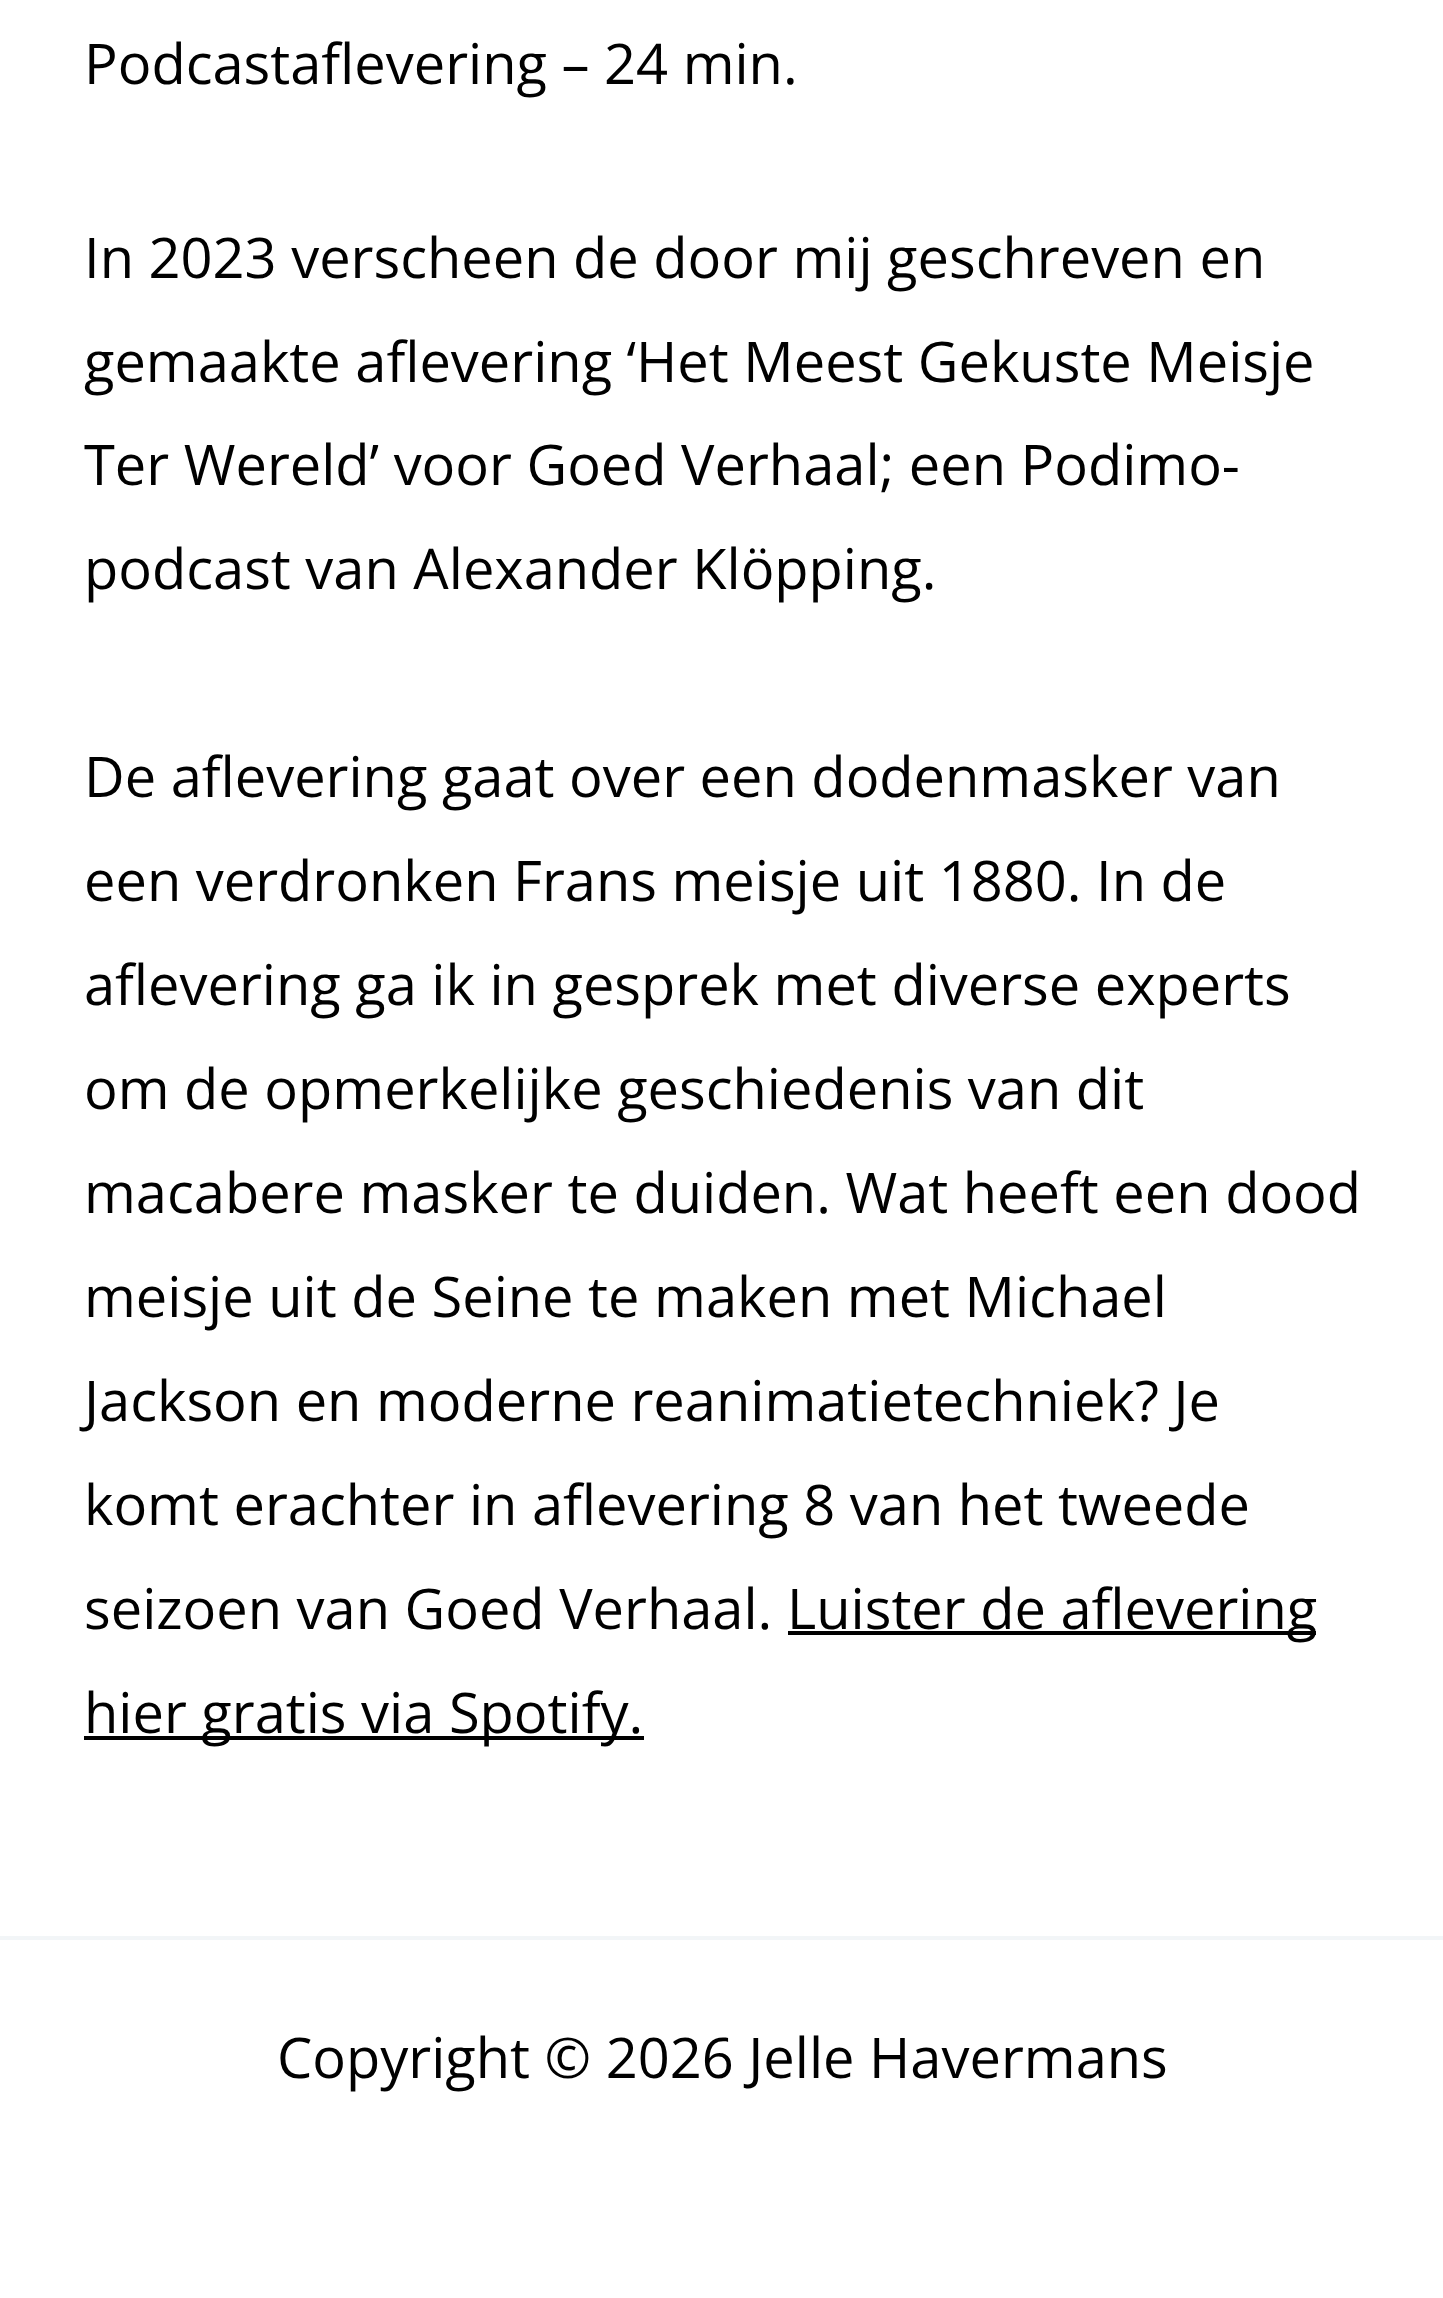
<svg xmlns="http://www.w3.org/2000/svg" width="1443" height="2298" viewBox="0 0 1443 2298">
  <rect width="100%" height="100%" fill="#ffffff"/>
  <text x="84" y="84" font-family="Open Sans" font-size="56" fill="#000000">Podcastaflevering – 24 min.</text>
  <text x="84" y="278" font-family="Open Sans" font-size="56" fill="#000000">In 2023 verscheen de door mij geschreven en</text>
  <text x="84" y="382" font-family="Open Sans" font-size="56" fill="#000000">gemaakte aflevering ‘Het Meest Gekuste Meisje</text>
  <text x="84" y="485" font-family="Open Sans" font-size="56" fill="#000000">Ter Wereld’ voor Goed Verhaal; een Podimo-</text>
  <text x="84" y="589" font-family="Open Sans" font-size="56" fill="#000000">podcast van Alexander Klöpping.</text>
  <text x="84" y="797" font-family="Open Sans" font-size="56" fill="#000000">De aflevering gaat over een dodenmasker van</text>
  <text x="84" y="901" font-family="Open Sans" font-size="56" fill="#000000">een verdronken Frans meisje uit 1880. In de</text>
  <text x="84" y="1005" font-family="Open Sans" font-size="56" fill="#000000">aflevering ga ik in gesprek met diverse experts</text>
  <text x="84" y="1109" font-family="Open Sans" font-size="56" fill="#000000">om de opmerkelijke geschiedenis van dit</text>
  <text x="84" y="1213" font-family="Open Sans" font-size="56" fill="#000000">macabere masker te duiden. Wat heeft een dood</text>
  <text x="84" y="1317" font-family="Open Sans" font-size="56" fill="#000000">meisje uit de Seine te maken met Michael</text>
  <text x="84" y="1421" font-family="Open Sans" font-size="56" fill="#000000">Jackson en moderne reanimatietechniek? Je</text>
  <text x="84" y="1525" font-family="Open Sans" font-size="56" fill="#000000">komt erachter in aflevering 8 van het tweede</text>
  <text x="84" y="1629" font-family="Open Sans" font-size="56" fill="#000000">seizoen van Goed Verhaal.</text>
  <rect x="788" y="1631" width="528" height="4" fill="#000000"/>
  <text x="787" y="1629" font-family="Open Sans" font-size="56" fill="#000000">Luister de aflevering</text>
  <rect x="84" y="1736" width="560" height="4" fill="#000000"/>
  <text x="84" y="1733" font-family="Open Sans" font-size="56" fill="#000000">hier gratis via Spotify.</text>
  <rect x="0" y="1936" width="1443" height="4" fill="#f2f5f7"/>
  <text x="277" y="2078" font-family="Open Sans" font-size="56" fill="#000000">Copyright © 2026 Jelle Havermans</text>
</svg>
